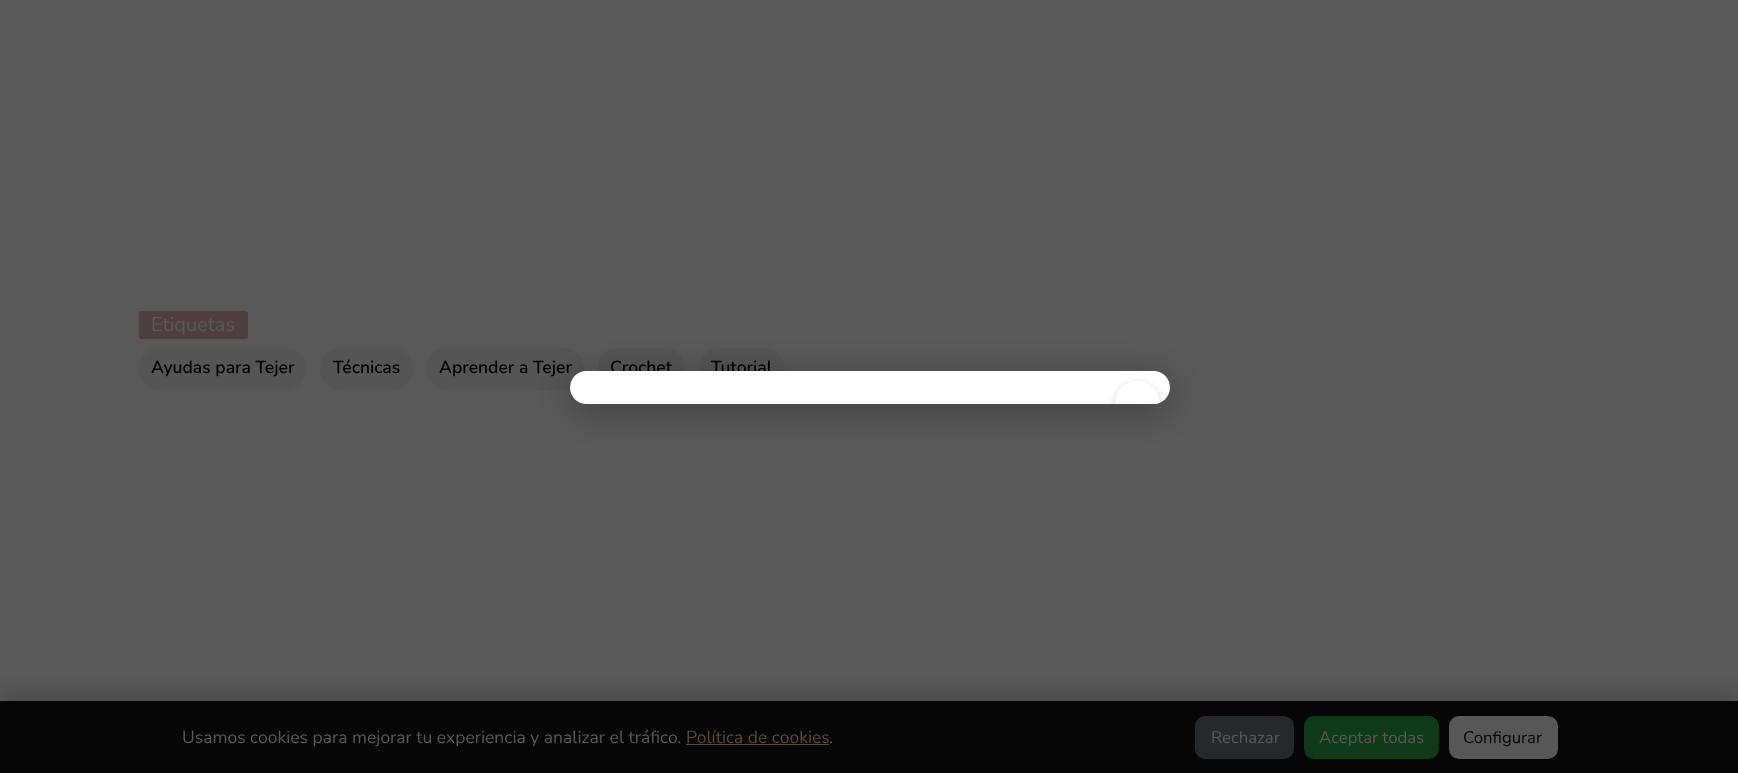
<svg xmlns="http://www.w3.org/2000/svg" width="1738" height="773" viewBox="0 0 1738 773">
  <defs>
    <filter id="blur1" x="-50%" y="-200%" width="200%" height="500%"><feGaussianBlur stdDeviation="19"/></filter>
    <clipPath id="clip1"><rect x="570" y="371" width="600" height="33" rx="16.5"/></clipPath>
    <filter id="blur2" x="-50%" y="-200%" width="200%" height="500%"><feGaussianBlur stdDeviation="4"/></filter>
    <clipPath id="clip2"><rect x="570" y="371" width="600" height="33" rx="16.5"/></clipPath>
    <filter id="blur3" x="-50%" y="-200%" width="200%" height="500%"><feGaussianBlur stdDeviation="11"/></filter>
  </defs>
  <rect width="100%" height="100%" fill="#595959"/>
  <rect x="139" y="311" width="109" height="28" rx="2.5" fill="#4e3e3e"/>
  <text x="151" y="331" font-family="Nunito" font-size="20" fill="#595959">Etiquetas</text>
  <rect x="139" y="348" width="167" height="42" rx="21" fill="#555555"/>
  <text x="151" y="373" font-family="Nunito" font-size="17.5" font-weight="600" fill="#000000">Ayudas para Tejer</text>
  <rect x="320" y="348" width="93" height="42" rx="21" fill="#555555"/>
  <text x="333" y="373" font-family="Nunito" font-size="17.5" font-weight="600" fill="#000000">Técnicas</text>
  <rect x="426" y="348" width="158" height="42" rx="21" fill="#555555"/>
  <text x="439" y="373" font-family="Nunito" font-size="17.5" font-weight="600" fill="#000000">Aprender a Tejer</text>
  <rect x="598" y="348" width="87" height="42" rx="21" fill="#555555"/>
  <text x="610" y="373" font-family="Nunito" font-size="17.5" font-weight="600" fill="#000000">Crochet</text>
  <rect x="699" y="348" width="86" height="42" rx="21" fill="#555555"/>
  <text x="711" y="373" font-family="Nunito" font-size="17.5" font-weight="600" fill="#000000">Tutorial</text>
  <rect x="570" y="378" width="600" height="32" rx="16" fill="#000000" fill-opacity="0.3" filter="url(#blur1)"/>
  <rect x="570" y="371" width="600" height="33" rx="16.5" fill="#ffffff"/>
  <g clip-path="url(#clip1)">
    <rect x="1115" y="384" width="45" height="45" rx="22.5" fill="#000000" fill-opacity="0.2" filter="url(#blur2)"/>
  </g>
  <g clip-path="url(#clip2)">
    <circle cx="1137.5" cy="403.5" r="22.5" fill="#ffffff"/>
  </g>
  <rect x="0" y="694" width="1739" height="72" fill="#000000" fill-opacity="0.18" filter="url(#blur3)"/>
  <rect x="0" y="701" width="1738" height="72" fill="#060606"/>
  <text x="182" y="743" font-family="Nunito" font-size="17.5" fill="#595959">Usamos cookies para mejorar tu experiencia y analizar el tráfico.</text>
  <text x="686" y="743" font-family="Nunito" font-size="17.5" fill="#594a37">Política de cookies</text>
  <rect x="686" y="744" width="143" height="1" fill="#594a37"/>
  <text x="829" y="743" font-family="Nunito" font-size="17.5" fill="#595959">.</text>
  <rect x="1195" y="716" width="99" height="43" rx="10" fill="#26292c"/>
  <text x="1211" y="743" font-family="Nunito" font-size="16.75" fill="#595959">Rechazar</text>
  <rect x="1304" y="716" width="135" height="43" rx="10" fill="#0e3a18"/>
  <text x="1319" y="743" font-family="Nunito" font-size="16.75" fill="#595959">Aceptar todas</text>
  <rect x="1449" y="716" width="109" height="43" rx="10" fill="#575758"/>
  <text x="1463" y="743" font-family="Nunito" font-size="16.75" fill="#060606">Configurar</text>
</svg>
